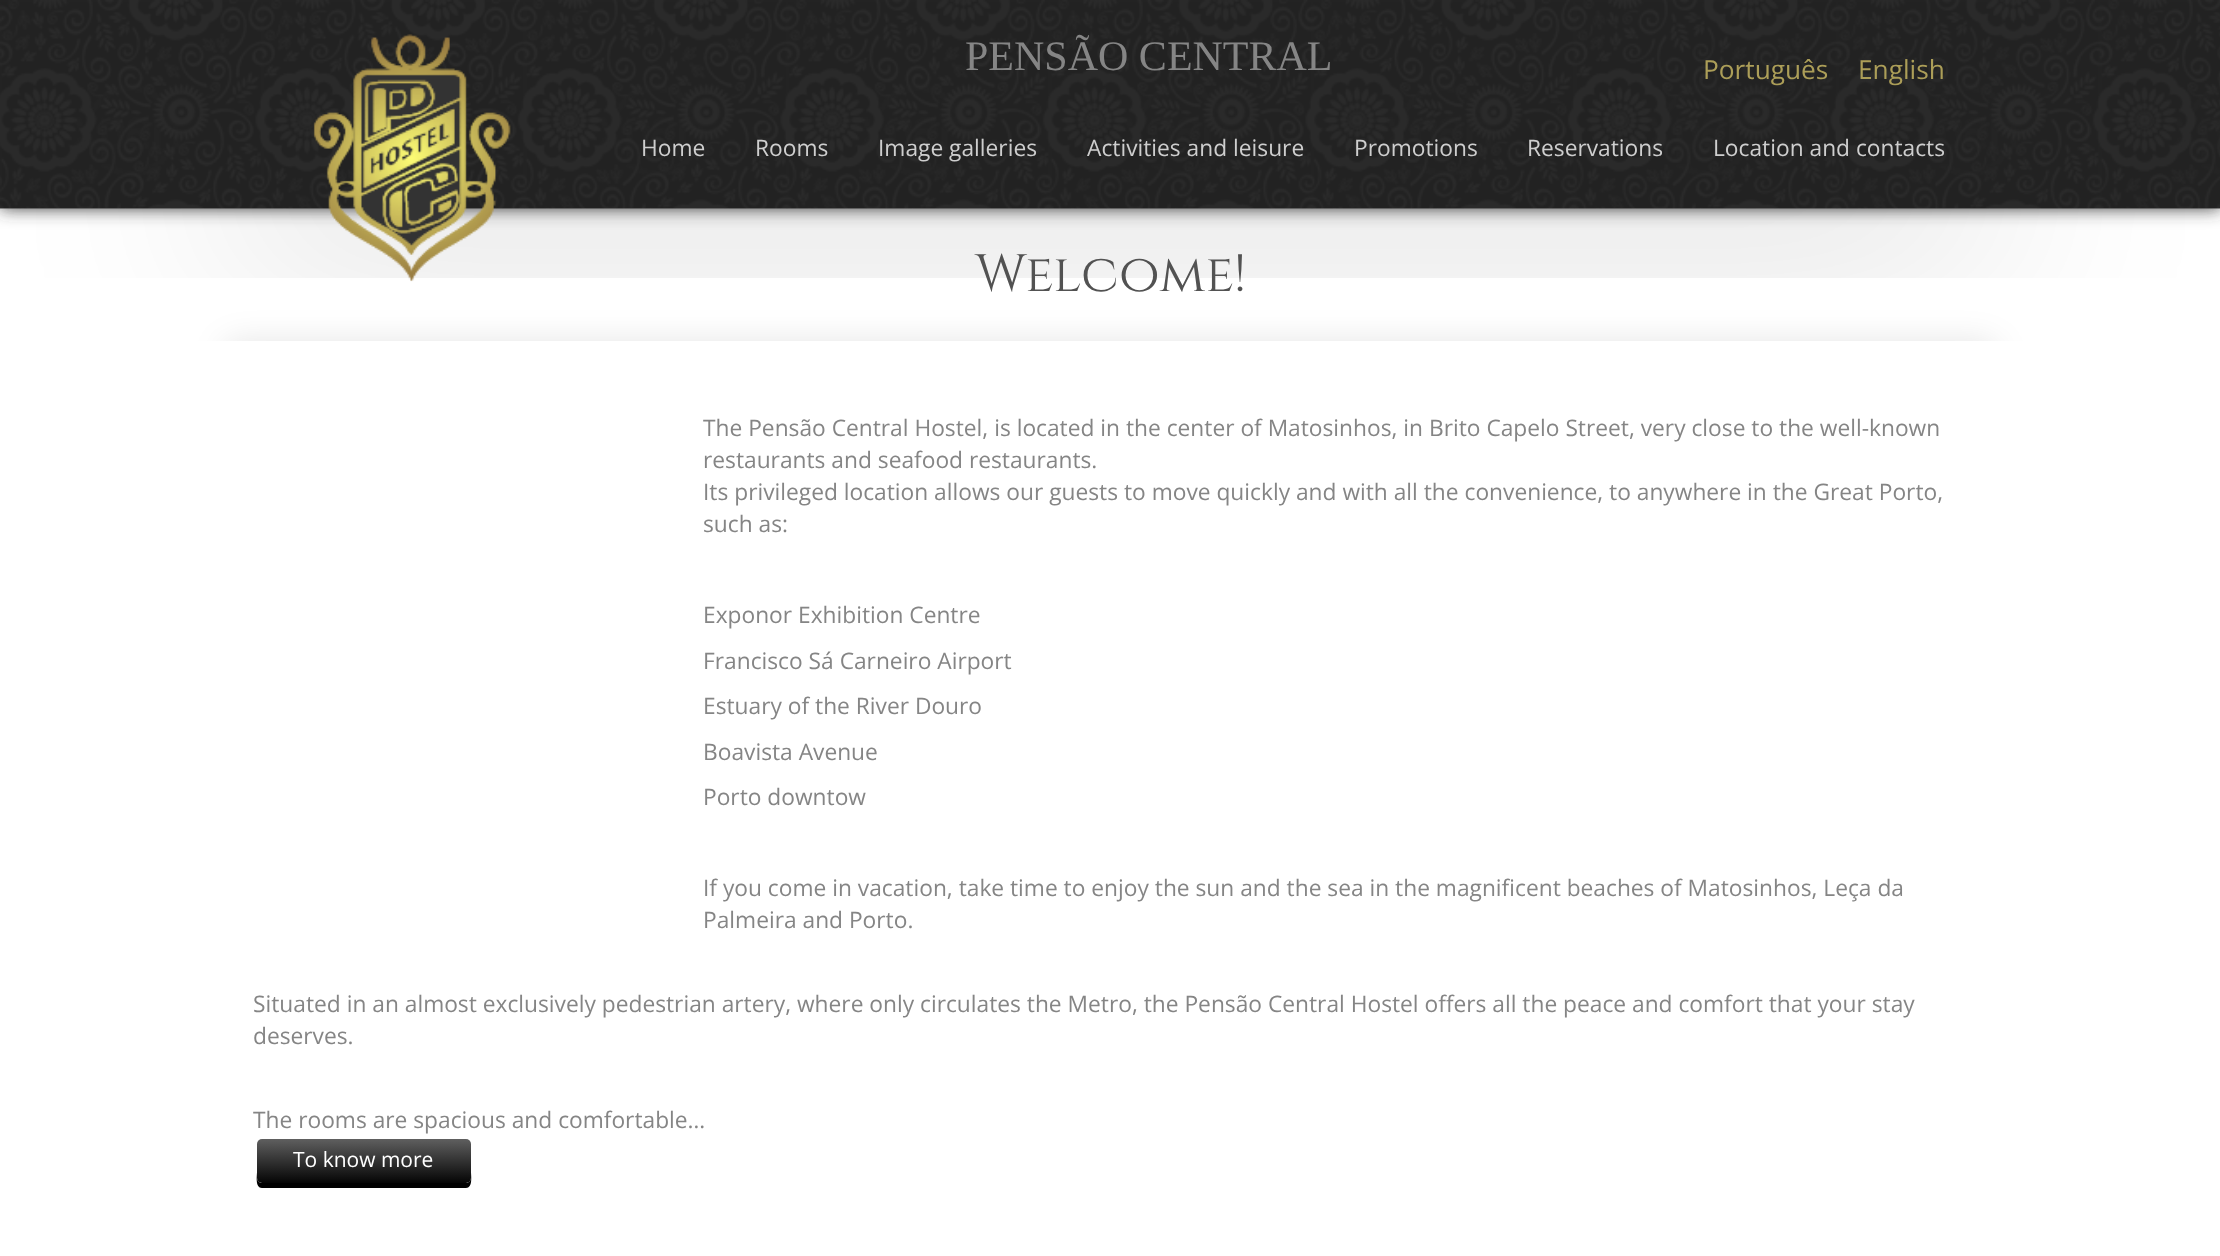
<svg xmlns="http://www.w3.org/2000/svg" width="2220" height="1256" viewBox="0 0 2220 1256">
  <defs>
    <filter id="blur1" x="-50%" y="-200%" width="200%" height="500%"><feGaussianBlur stdDeviation="9"/></filter>
    <clipPath id="clip1"><rect x="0" y="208" width="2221" height="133"/></clipPath>
    <filter id="blur2" x="-50%" y="-200%" width="200%" height="500%"><feGaussianBlur stdDeviation="109.5"/></filter>
    <filter id="blur3" x="-50%" y="-200%" width="200%" height="500%"><feGaussianBlur stdDeviation="16"/></filter>
    <linearGradient id="g1" gradientUnits="userSpaceOnUse" x1="364" y1="1139" x2="364" y2="1183"><stop offset="0" stop-color="#5f5f5f"/><stop offset="1" stop-color="#050505"/></linearGradient>
  </defs>
  <rect width="100%" height="100%" fill="#ffffff"/>
  <rect x="0" y="0" width="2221" height="208" fill="#393939" filter="url(#blur1)"/>
  <g clip-path="url(#clip1)">
    <rect x="222" y="173" width="1777" height="35" rx="17.5" fill="#000000" fill-opacity="0.5" filter="url(#blur2)"/>
  </g>
  <image x="0" y="208" width="2220" height="1" href="img1.png"/>
  <image x="0" y="0" width="2220" height="209" href="img2.png"/>
  <image x="313" y="34" width="198" height="248" href="img3.png"/>
  <text x="965" y="70" font-family="Liberation Serif" font-size="42" fill="#858585">PENSÃO CENTRAL</text>
  <text x="1703" y="79" font-family="Open Sans" font-size="26.25" fill="#ac9e58">Português</text>
  <text x="1858" y="79" font-family="Open Sans" font-size="26.25" fill="#ac9e58">English</text>
  <text x="641" y="156" font-family="Open Sans" font-size="22.75" fill="#cecece">Home</text>
  <text x="755" y="156" font-family="Open Sans" font-size="22.75" fill="#cecece">Rooms</text>
  <text x="878" y="156" font-family="Open Sans" font-size="22.75" fill="#cecece">Image galleries</text>
  <text x="1087" y="156" font-family="Open Sans" font-size="22.75" fill="#cecece">Activities and leisure</text>
  <text x="1354" y="156" font-family="Open Sans" font-size="22.75" fill="#cecece">Promotions</text>
  <text x="1527" y="156" font-family="Open Sans" font-size="22.75" fill="#cecece">Reservations</text>
  <text x="1713" y="156" font-family="Open Sans" font-size="22.75" fill="#cecece">Location and contacts</text>
  <text x="975" y="291" font-family="Cinzel" font-size="52.5" fill="#525252">Welcome!</text>
  <g clip-path="url(#clip1)">
    <rect x="222" y="341" width="1777" height="35" rx="17.5" fill="#000000" fill-opacity="0.1" filter="url(#blur3)"/>
  </g>
  <text x="703" y="436" font-family="Open Sans" font-size="22.75" fill="#858585">The Pensão Central Hostel, is located in the center of Matosinhos, in Brito Capelo Street, very close to the well-known</text>
  <text x="703" y="468" font-family="Open Sans" font-size="22.75" fill="#858585">restaurants and seafood restaurants.</text>
  <text x="703" y="500" font-family="Open Sans" font-size="22.75" fill="#858585">Its privileged location allows our guests to move quickly and with all the convenience, to anywhere in the Great Porto,</text>
  <text x="703" y="532" font-family="Open Sans" font-size="22.75" fill="#858585">such as:</text>
  <text x="703" y="623" font-family="Open Sans" font-size="22.75" fill="#858585">Exponor Exhibition Centre</text>
  <text x="703" y="669" font-family="Open Sans" font-size="22.75" fill="#858585">Francisco Sá Carneiro Airport</text>
  <text x="703" y="714" font-family="Open Sans" font-size="22.75" fill="#858585">Estuary of the River Douro</text>
  <text x="703" y="760" font-family="Open Sans" font-size="22.75" fill="#858585">Boavista Avenue</text>
  <text x="703" y="805" font-family="Open Sans" font-size="22.75" fill="#858585">Porto downtow</text>
  <text x="703" y="896" font-family="Open Sans" font-size="22.75" fill="#858585">If you come in vacation, take time to enjoy the sun and the sea in the magnificent beaches of Matosinhos, Leça da</text>
  <text x="703" y="928" font-family="Open Sans" font-size="22.75" fill="#858585">Palmeira and Porto.</text>
  <text x="253" y="1012" font-family="Open Sans" font-size="22.75" fill="#858585">Situated in an almost exclusively pedestrian artery, where only circulates the Metro, the Pensão Central Hostel offers all the peace and comfort that your stay</text>
  <text x="253" y="1044" font-family="Open Sans" font-size="22.75" fill="#858585">deserves.</text>
  <text x="253" y="1128" font-family="Open Sans" font-size="22.75" fill="#858585">The rooms are spacious and comfortable…</text>
  <path d="M257 1148V1172C257 1176 255 1188 262 1188H466C473 1188 471 1176 471 1172V1148V1178C471 1181 468 1183 466 1183H262C260 1183 257 1181 257 1178Z" fill="#000000"/>
  <rect x="257" y="1139" width="214" height="44" rx="5" fill="url(#g1)"/>
  <text x="293" y="1167" font-family="Open Sans" font-size="21" fill="#ffffff">To know more</text>
</svg>
